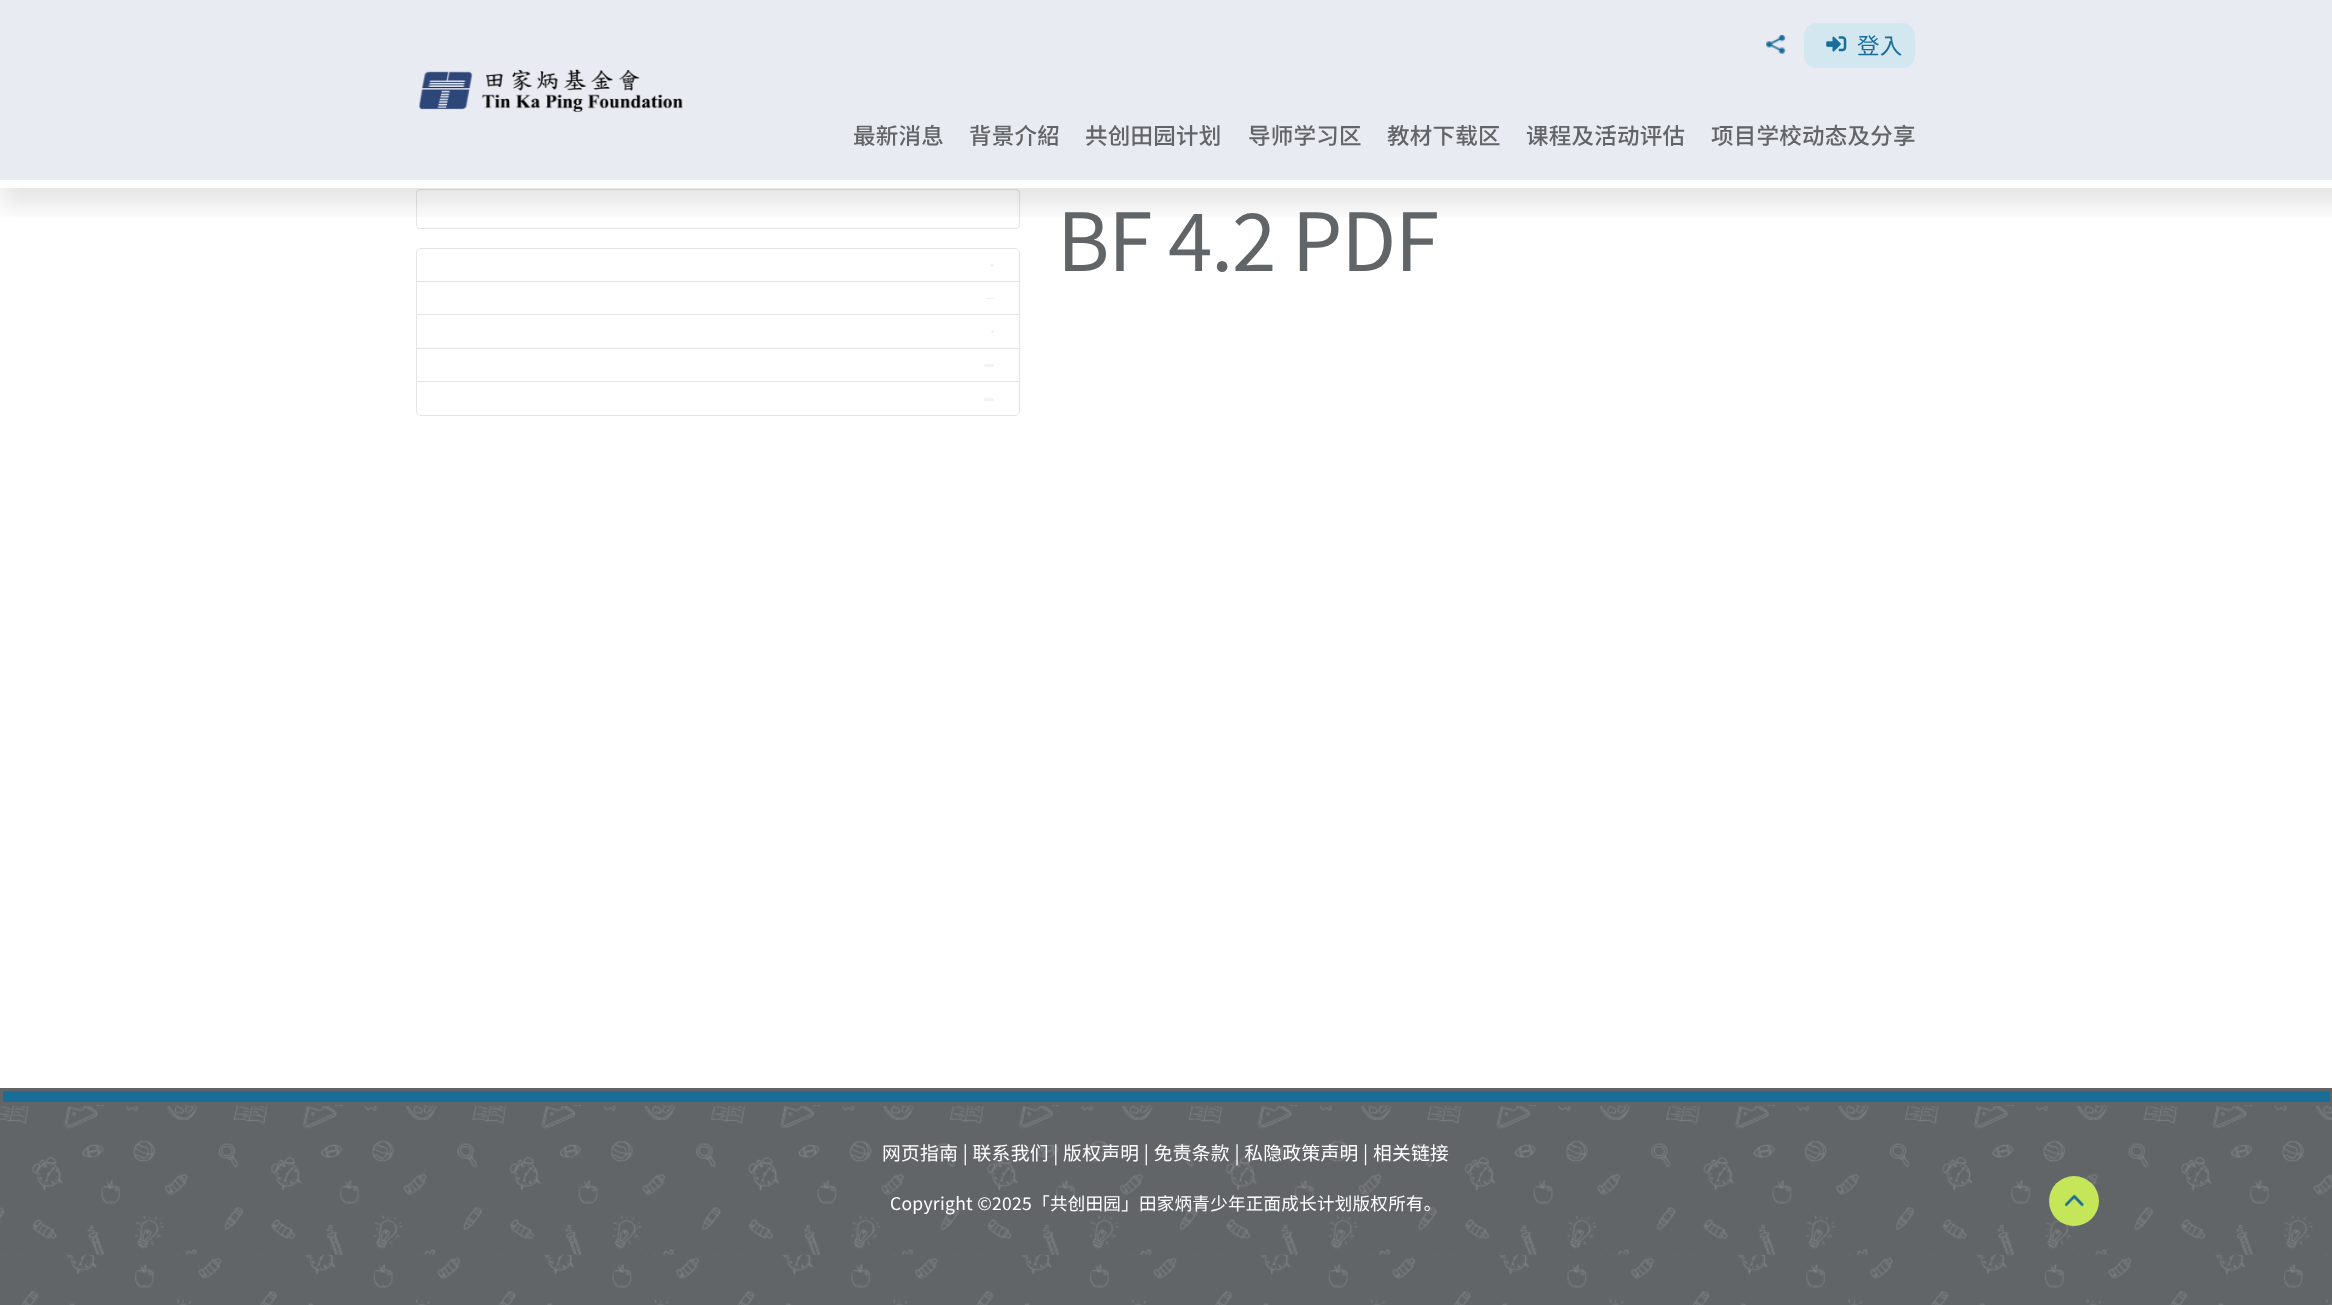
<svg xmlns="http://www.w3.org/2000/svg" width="2332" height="1305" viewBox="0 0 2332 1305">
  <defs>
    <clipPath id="clip1"><rect x="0" y="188" width="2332" height="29"/></clipPath>
    <filter id="blur1" x="-50%" y="-200%" width="200%" height="500%"><feGaussianBlur stdDeviation="12.5"/></filter>
  </defs>
  <rect width="100%" height="100%" fill="#ffffff"/>
  <image x="0" y="1255" width="2332" height="50" href="img1.png"/>
  <rect x="0" y="0" width="2332" height="180" fill="#e9ebf2"/>
  <rect x="416.5" y="189.5" width="603" height="39" rx="3.5" fill="none" stroke="#e5e5e5"/>
  <g clip-path="url(#clip1)">
    <rect x="0" y="-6" width="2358" height="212" fill="#000000" fill-opacity="0.1" filter="url(#blur1)"/>
  </g>
  <rect x="0" y="187" width="2332" height="1" fill="#ffffff"/>
  <image x="419" y="69" width="264" height="44" href="img2.png"/>
  <image x="1766" y="34" width="20" height="20" href="img3.png"/>
  <rect x="1804" y="23" width="111" height="45" rx="13" fill="#d3e7f0"/>
  <image x="1826" y="36" width="21" height="16" href="img4.png"/>
  <text x="1857" y="54" font-family="Noto Sans TC" font-size="22.5" font-weight="100" letter-spacing="0.25" fill="#196d99">登入</text>
  <text x="853" y="144" font-family="Noto Sans SC" font-size="22.5" font-weight="500" letter-spacing="0.25" fill="#626567">最新消息</text>
  <text x="969" y="144" font-family="Noto Sans SC" font-size="22.5" font-weight="500" letter-spacing="0.25" fill="#626567">背景介紹</text>
  <text x="1085" y="144" font-family="Noto Sans SC" font-size="22.5" font-weight="500" letter-spacing="0.25" fill="#626567">共创田园计划</text>
  <text x="1248" y="144" font-family="Noto Sans SC" font-size="22.5" font-weight="500" letter-spacing="0.25" fill="#626567">导师学习区</text>
  <text x="1387" y="144" font-family="Noto Sans SC" font-size="22.5" font-weight="500" letter-spacing="0.25" fill="#626567">教材下载区</text>
  <text x="1526" y="144" font-family="Noto Sans SC" font-size="22.5" font-weight="500" letter-spacing="0.25" fill="#626567">课程及活动评估</text>
  <text x="1711" y="144" font-family="Noto Sans SC" font-size="22.5" font-weight="500" letter-spacing="0.25" fill="#626567">项目学校动态及分享</text>
  <path d="M421 248.5H1015C1017.5 248.5 1019.5 250.5 1019.5 253V282.5H416.5V253C416.5 250.5 418.5 248.5 421 248.5Z" fill="none" stroke="#e5e5e5"/>
  <rect x="990" y="264" width="4" height="3" rx="1.5" fill="#f2f2f2"/>
  <rect x="417" y="282" width="602" height="1" fill="#ffffff"/>
  <rect x="416.5" y="281.5" width="603" height="33" fill="none" stroke="#e5e5e5"/>
  <rect x="986" y="298" width="8" height="1" rx="0.5" fill="#f2f2f2"/>
  <rect x="416.5" y="314.5" width="603" height="34" fill="none" stroke="#e5e5e5"/>
  <circle cx="992.5" cy="331.5" r="1.5" fill="#f2f2f2"/>
  <rect x="416.5" y="348.5" width="603" height="34" fill="none" stroke="#e5e5e5"/>
  <rect x="984" y="364" width="10" height="3" rx="1.5" fill="#f2f2f2"/>
  <path d="M416.5 381.5H1019.5V411C1019.5 413.5 1017.5 415.5 1015 415.5H421C418.5 415.5 416.5 413.5 416.5 411Z" fill="#ffffff" stroke="#e5e5e5"/>
  <rect x="984" y="398" width="10" height="3" rx="1.5" fill="#f2f2f2"/>
  <text x="1057" y="271" font-family="Noto Sans SC" font-size="80" letter-spacing="-1.25" fill="#626567">BF 4.2 PDF</text>
  <rect x="1.5" y="1089.5" width="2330" height="14" fill="#196d99" stroke="#626567" stroke-width="3"/>
  <image x="0" y="1105" width="2332" height="150" href="img5.png"/>
  <text x="882" y="1160" font-family="Noto Sans SC" font-size="18.75" letter-spacing="0.3" fill="#ffffff">网页指南 | 联系我们 | 版权声明 | 免责条款 | 私隐政策声明 | 相关链接</text>
  <text x="890" y="1210" font-family="Noto Sans SC" font-size="17.5" letter-spacing="0.3" fill="#ffffff">Copyright ©2025「共创田园」田家炳青少年正面成长计划版权所有。</text>
  <circle cx="2074" cy="1201" r="25" fill="#c6e65a"/>
  <image x="2065" y="1194" width="19" height="13" href="img6.png"/>
</svg>
